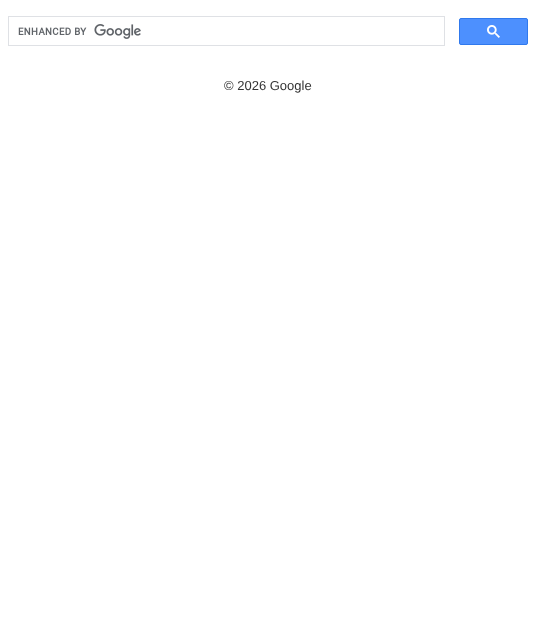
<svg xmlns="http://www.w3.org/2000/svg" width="536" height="628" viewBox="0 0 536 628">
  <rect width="100%" height="100%" fill="#ffffff"/>
  <rect x="8.5" y="16.5" width="436" height="29" fill="none" stroke="#dfe1e5"/>
  <image x="18" y="24" width="123" height="15" href="img1.png"/>
  <rect x="459.5" y="18.5" width="68" height="26" rx="1.5" fill="#4d90fe" stroke="#3079ed"/>
  <image x="487" y="25" width="13" height="13" href="img2.png"/>
  <text x="224" y="90" font-family="Liberation Sans" font-size="13" fill="#333333">© 2026 Google</text>
</svg>
